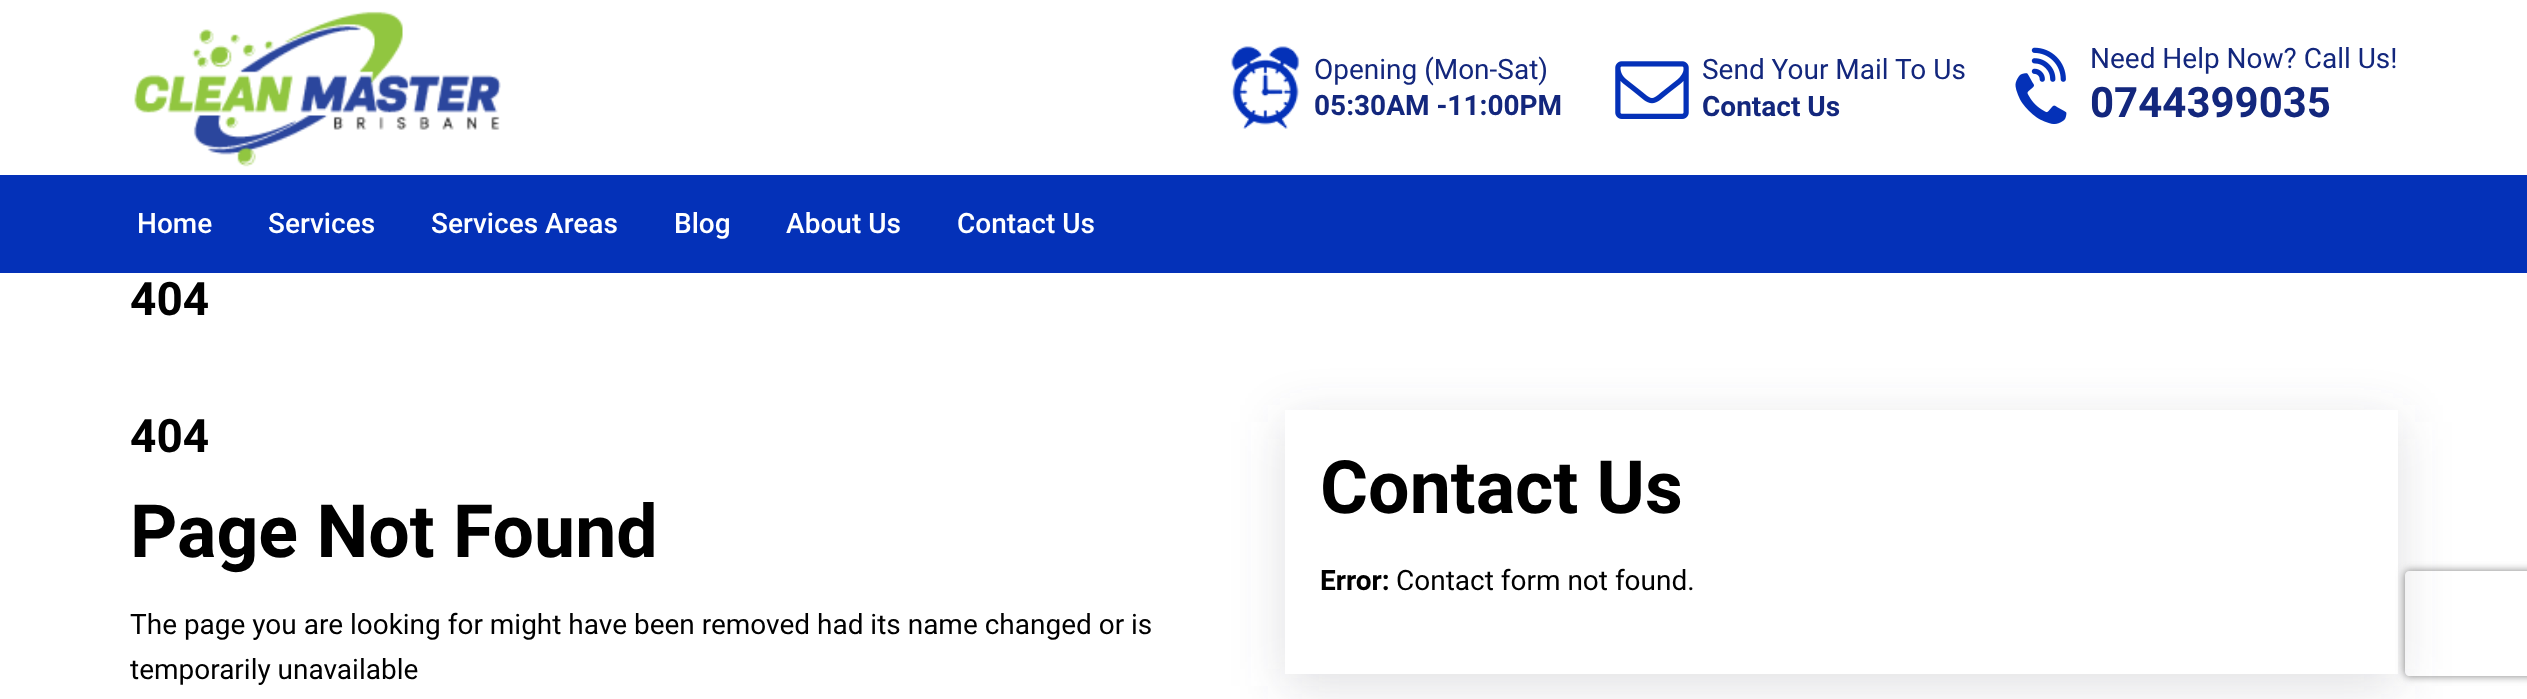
<svg xmlns="http://www.w3.org/2000/svg" width="2527" height="699" viewBox="0 0 2527 699">
  <defs>
    <filter id="blur1" x="-50%" y="-200%" width="200%" height="500%"><feGaussianBlur stdDeviation="25.5"/></filter>
    <clipPath id="clip1"><path d="M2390 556H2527V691H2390ZM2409 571H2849C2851 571 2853 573 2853 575V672C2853 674 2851 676 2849 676H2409C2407 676 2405 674 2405 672V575C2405 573 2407 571 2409 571Z" clip-rule="evenodd"/></clipPath>
    <filter id="blur2" x="-50%" y="-200%" width="200%" height="500%"><feGaussianBlur stdDeviation="4.5"/></filter>
  </defs>
  <rect width="100%" height="100%" fill="#ffffff"/>
  <image x="134" y="11" width="367" height="156" href="img1.png"/>
  <image x="1231" y="46" width="69" height="83" href="img2.png"/>
  <text x="1314" y="79" font-family="Roboto" font-size="28" fill="#13277d">Opening (Mon-Sat)</text>
  <text x="1314" y="115" font-family="Roboto" font-size="28" font-weight="bold" fill="#13277d">05:30AM -11:00PM</text>
  <image x="1615" y="61" width="74" height="58" href="img3.png"/>
  <text x="1702" y="79" font-family="Roboto" font-size="28" fill="#13277d">Send Your Mail To Us</text>
  <text x="1702" y="116" font-family="Roboto" font-size="28" font-weight="bold" fill="#13277d">Contact Us</text>
  <image x="2015" y="47" width="52" height="77" href="img4.png"/>
  <text x="2090" y="68" font-family="Roboto" font-size="28" fill="#13277d">Need Help Now? Call Us!</text>
  <text x="2090" y="117" font-family="Roboto" font-size="42" font-weight="bold" fill="#13277d">0744399035</text>
  <rect x="0" y="175" width="2527" height="98" fill="#0431b8"/>
  <text x="137" y="233" font-family="Roboto" font-size="28" font-weight="500" fill="#ffffff">Home</text>
  <text x="268" y="233" font-family="Roboto" font-size="28" font-weight="500" fill="#ffffff">Services</text>
  <text x="431" y="233" font-family="Roboto" font-size="28" font-weight="500" fill="#ffffff">Services Areas</text>
  <text x="674" y="233" font-family="Roboto" font-size="28" font-weight="500" fill="#ffffff">Blog</text>
  <text x="786" y="233" font-family="Roboto" font-size="28" font-weight="500" fill="#ffffff">About Us</text>
  <text x="957" y="233" font-family="Roboto" font-size="28" font-weight="500" fill="#ffffff">Contact Us</text>
  <text x="130" y="315" font-family="Roboto" font-size="46" font-weight="bold" fill="#000000">404</text>
  <text x="130" y="452" font-family="Roboto" font-size="46" font-weight="bold" fill="#000000">404</text>
  <text x="130" y="557" font-family="Roboto" font-size="73.5" font-weight="bold" fill="#000000">Page Not Found</text>
  <text x="130" y="634" font-family="Roboto" font-size="28" fill="#000000">The page you are looking for might have been removed had its name changed or is</text>
  <text x="130" y="679" font-family="Roboto" font-size="28" fill="#000000">temporarily unavailable</text>
  <rect x="1285" y="422" width="1113" height="264" fill="#64646f" fill-opacity="0.2" filter="url(#blur1)"/>
  <rect x="1285" y="410" width="1113" height="264" fill="#ffffff"/>
  <text x="1320" y="513" font-family="Roboto" font-size="73.5" font-weight="bold" fill="#000000">Contact Us</text>
  <text x="1320" y="590" font-family="Roboto" font-size="28" font-weight="bold" fill="#000000">Error:</text>
  <text x="1396" y="590" font-family="Roboto" font-size="28" fill="#000000">Contact form not found.</text>
  <g clip-path="url(#clip1)">
    <rect x="2405" y="571" width="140" height="105" rx="4" fill="#808080" filter="url(#blur2)"/>
  </g>
</svg>
